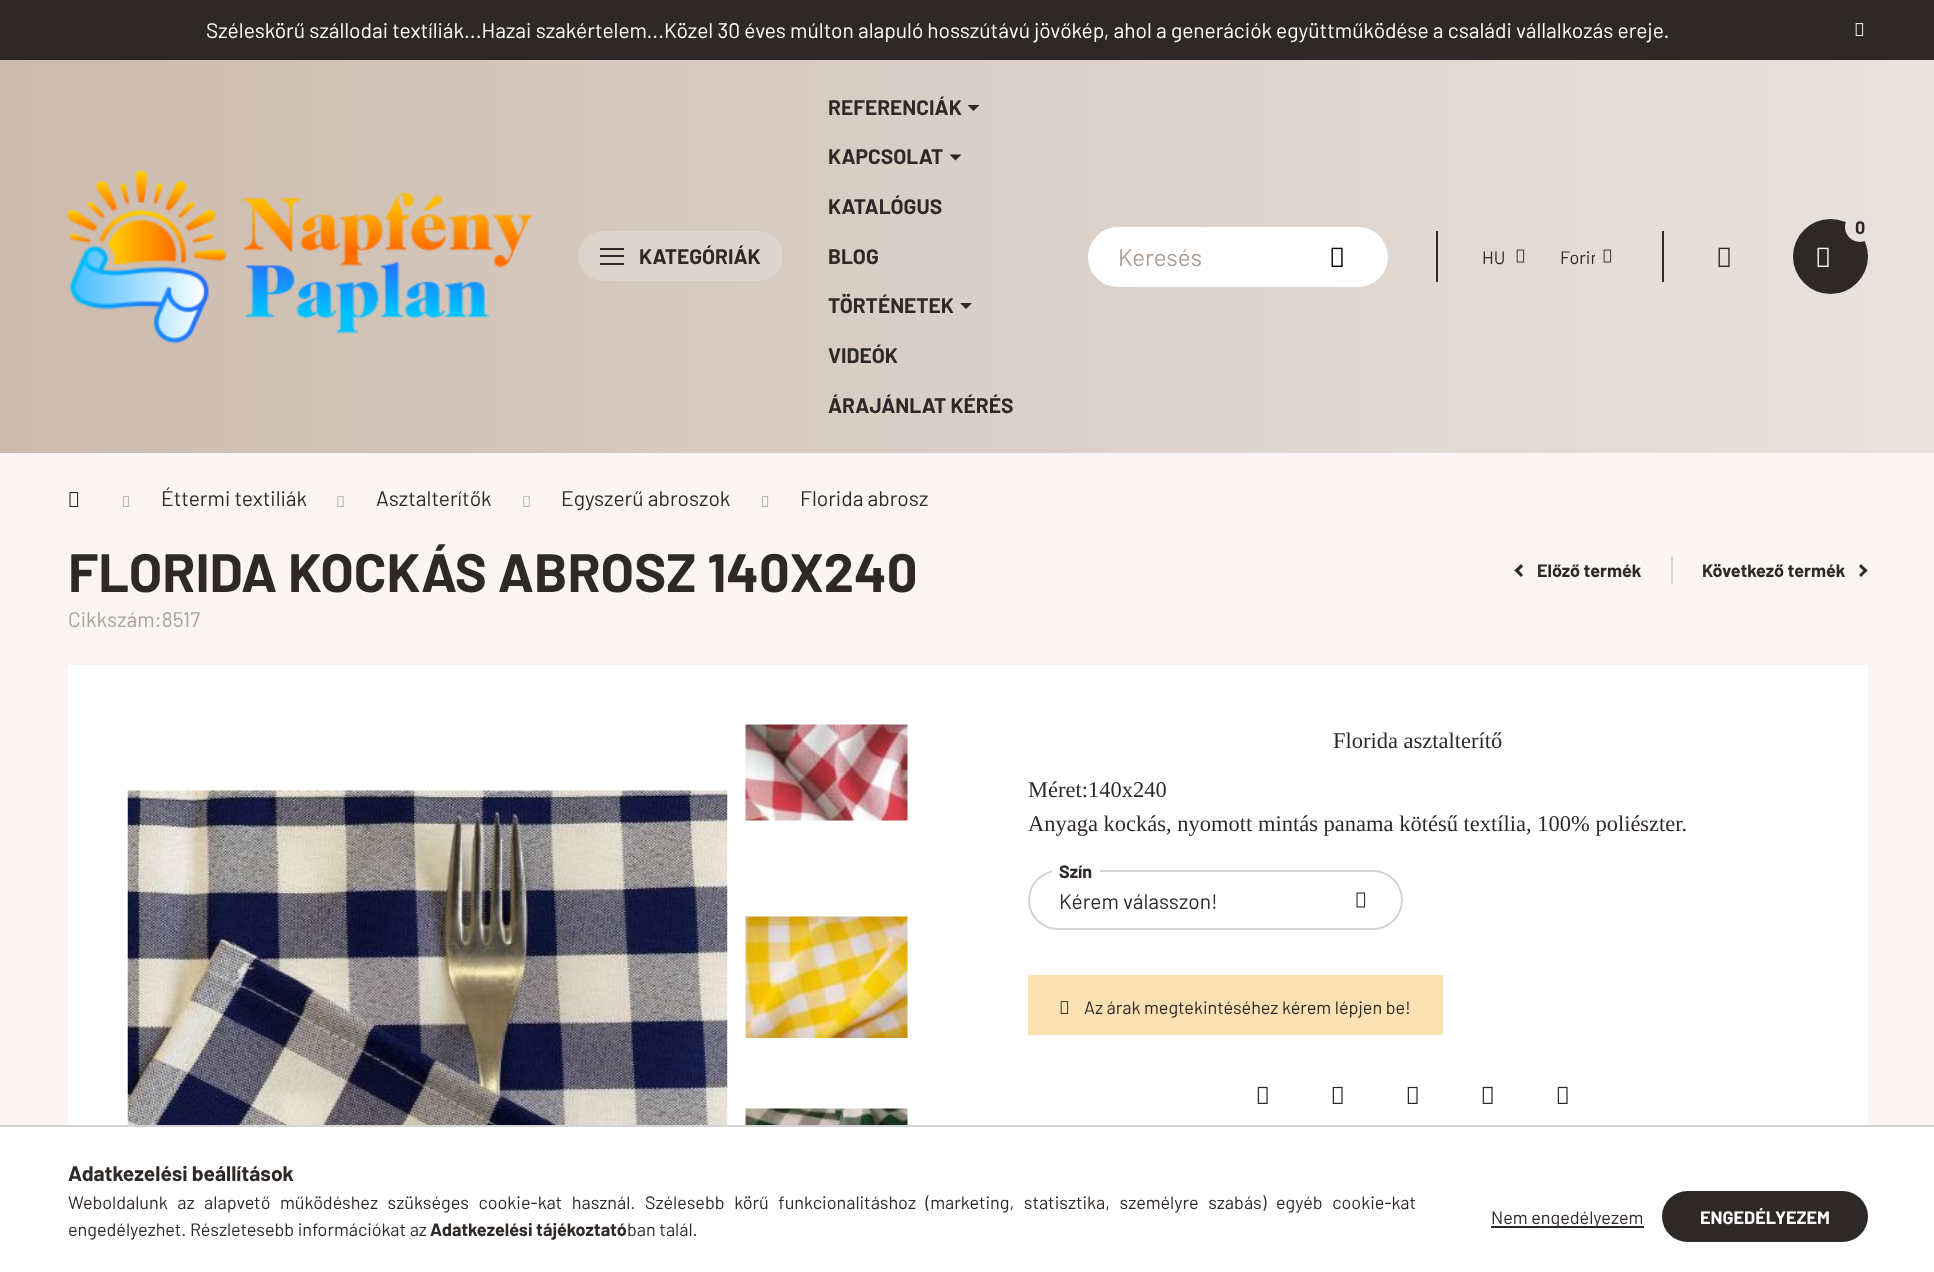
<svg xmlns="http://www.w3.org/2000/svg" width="1934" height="1272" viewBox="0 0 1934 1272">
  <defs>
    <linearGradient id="g1" gradientUnits="userSpaceOnUse" x1="0" y1="636" x2="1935" y2="636"><stop offset="0" stop-color="#ccbbad"/><stop offset="1" stop-color="#e8e3df"/></linearGradient>
    <clipPath id="clip1"><rect x="1560" y="243" width="35" height="27"/></clipPath>
    <linearGradient id="g2" gradientUnits="userSpaceOnUse" x1="1662" y1="1217" x2="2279" y2="1217"><stop offset="0.33" stop-color="#2e2926"/><stop offset="0.67" stop-color="#ccbbad"/></linearGradient>
  </defs>
  <rect width="100%" height="100%" fill="#faf5f2"/>
  <rect x="0" y="0" width="1934" height="60" fill="#2e2926"/>
  <text x="206" y="38" font-family="Barlow" font-size="21" fill="#ffffff">Széleskörű szállodai textíliák...Hazai szakértelem...Közel 30 éves múlton alapuló hosszútávú jövőkép, ahol a generációk együttműködése a családi vállalkozás ereje.</text>
  <image x="1855" y="23" width="9" height="13" href="img1.png"/>
  <rect x="0" y="60" width="1934" height="393" fill="url(#g1)"/>
  <image x="67" y="169" width="466" height="175" href="img2.png"/>
  <rect x="578" y="231" width="205" height="50" rx="25" fill="#ffffff" fill-opacity="0.2"/>
  <rect x="600" y="248" width="24" height="2" fill="#2e2926"/>
  <rect x="600" y="255" width="24" height="2" fill="#2e2926"/>
  <rect x="600" y="263" width="24" height="2" fill="#2e2926"/>
  <text x="639" y="264" font-family="Barlow" font-size="21" font-weight="bold" fill="#2e2926">KATEGÓRIÁK</text>
  <text x="828" y="115" font-family="Barlow" font-size="21" font-weight="bold" fill="#2e2926">REFERENCIÁK</text>
  <path d="M967.5 105H979.5L973.5 111Z" fill="#2e2926"/>
  <text x="828" y="164" font-family="Barlow" font-size="21" font-weight="bold" fill="#2e2926">KAPCSOLAT</text>
  <path d="M949.5 154.5H961.5L955.5 160.5Z" fill="#2e2926"/>
  <text x="828" y="214" font-family="Barlow" font-size="21" font-weight="bold" fill="#2e2926">KATALÓGUS</text>
  <text x="828" y="264" font-family="Barlow" font-size="21" font-weight="bold" fill="#2e2926">BLOG</text>
  <text x="828" y="313" font-family="Barlow" font-size="21" font-weight="bold" fill="#2e2926">TÖRTÉNETEK</text>
  <path d="M960 303H972L966 309Z" fill="#2e2926"/>
  <text x="828" y="363" font-family="Barlow" font-size="21" font-weight="bold" fill="#2e2926">VIDEÓK</text>
  <text x="828" y="413" font-family="Barlow" font-size="21" font-weight="bold" fill="#2e2926">ÁRAJÁNLAT KÉRÉS</text>
  <circle cx="1830.5" cy="256.5" r="37.5" fill="#2e2926"/>
  <circle cx="1860" cy="227" r="15" fill="url(#g1)"/>
  <text x="1855" y="234" font-family="Barlow" font-size="18" font-weight="bold" fill="#2e2926">0</text>
  <image x="1817" y="247" width="12" height="20" href="img3.png"/>
  <rect x="1088" y="227" width="300" height="60" rx="30" fill="#ffffff"/>
  <text x="1118" y="266" font-family="Barlow" font-size="24" fill="#ac9e92">Keresés</text>
  <image x="1331" y="247" width="12" height="20" href="img4.png"/>
  <rect x="1662" y="231" width="2" height="51" fill="#2e2926"/>
  <rect x="1436" y="231" width="2" height="51" fill="#2e2926"/>
  <text x="1482" y="264" font-family="Barlow" font-size="18" fill="#2e2926">HU</text>
  <image x="1516" y="249" width="9" height="14" href="img5.png"/>
  <g clip-path="url(#clip1)">
    <text x="1560" y="264" font-family="Barlow" font-size="18" fill="#2e2926">Forin</text>
  </g>
  <image x="1603" y="249" width="9" height="14" href="img6.png"/>
  <image x="1718" y="247" width="12" height="20" href="img7.png"/>
  <image x="69" y="492" width="10" height="15" href="img8.png"/>
  <image x="122" y="496" width="8" height="11" href="img9.png"/>
  <text x="161" y="506" font-family="Barlow" font-size="21" fill="#2e2926">Éttermi textiliák</text>
  <image x="337" y="496" width="7" height="11" href="img10.png"/>
  <text x="376" y="506" font-family="Barlow" font-size="21" fill="#2e2926">Asztalterítők</text>
  <image x="523" y="496" width="7" height="11" href="img10.png"/>
  <text x="561" y="506" font-family="Barlow" font-size="21" fill="#2e2926">Egyszerű abroszok</text>
  <image x="761" y="496" width="8" height="11" href="img9.png"/>
  <text x="800" y="506" font-family="Barlow" font-size="21" fill="#2e2926">Florida abrosz</text>
  <text x="68" y="592" font-family="Barlow" font-size="54" font-weight="bold" fill="#2e2926">FLORIDA KOCKÁS ABROSZ 140X240</text>
  <path d="M1514.5 570.5L1521 564L1523 566.5L1517 572.5Z" fill="#2e2926"/>
  <path d="M1517 568.5L1523 575L1521 577L1514.5 570.5Z" fill="#2e2926"/>
  <text x="1537" y="577" font-family="Barlow" font-size="18" font-weight="bold" fill="#2e2926">Előző termék</text>
  <rect x="1671" y="557" width="2" height="27" fill="#d5d4d4"/>
  <text x="1702" y="577" font-family="Barlow" font-size="18" font-weight="bold" fill="#2e2926">Következő termék</text>
  <path d="M1859 575L1865.5 568.5L1867.5 570.5L1861 577Z" fill="#2e2926"/>
  <path d="M1861 564L1867.5 570.5L1865.5 572.5L1859 566.5Z" fill="#2e2926"/>
  <text x="68" y="627" font-family="Barlow" font-size="21" fill="#ac9e92">Cikkszám:8517</text>
  <rect x="68" y="665" width="1800" height="460" fill="#ffffff"/>
  <image x="127" y="790" width="601" height="335" href="img11.png"/>
  <image x="745" y="724" width="163" height="97" href="img12.png"/>
  <image x="745" y="916" width="163" height="122" href="img13.png"/>
  <image x="745" y="1108" width="163" height="17" href="img14.png"/>
  <text x="1333" y="748" font-family="Liberation Serif" font-size="22.5" fill="#2e2926">Florida asztalterítő</text>
  <text x="1028" y="797" font-family="Liberation Serif" font-size="22.5" fill="#2e2926">Méret:140x240</text>
  <text x="1028" y="831" font-family="Liberation Serif" font-size="22.5" fill="#2e2926">Anyaga kockás, nyomott mintás panama kötésű textília, 100% poliészter.</text>
  <rect x="1029" y="871" width="373" height="58" rx="29" fill="none" stroke="#d5d4d4" stroke-width="2"/>
  <path d="M1061 857H1091C1096 857 1100 861 1100 866V884H1052V866C1052 861 1056 857 1061 857Z" fill="#ffffff"/>
  <text x="1059" y="878" font-family="Barlow" font-size="18" font-weight="bold" fill="#2e2926">Szín</text>
  <text x="1059" y="909" font-family="Barlow" font-size="21" fill="#2e2926">Kérem válasszon!</text>
  <image x="1356" y="892" width="10" height="16" href="img15.png"/>
  <rect x="1028" y="975" width="415" height="60" fill="#fbe0b3"/>
  <image x="1060" y="1001" width="9" height="13" href="img16.png"/>
  <text x="1084" y="1014" font-family="Barlow" font-size="18" fill="#2e2926">Az árak megtekintéséhez kérem lépjen be!</text>
  <image x="1257" y="1086" width="11" height="18" href="img17.png"/>
  <image x="1332" y="1086" width="11" height="18" href="img17.png"/>
  <image x="1407" y="1086" width="11" height="18" href="img17.png"/>
  <image x="1482" y="1086" width="11" height="18" href="img17.png"/>
  <image x="1557" y="1086" width="11" height="18" href="img17.png"/>
  <rect x="0" y="1127" width="1934" height="145" fill="#ffffff"/>
  <rect x="0" y="1125" width="1934" height="2" fill="#d5d4d4"/>
  <text x="68" y="1181" font-family="Barlow" font-size="21" font-weight="bold" fill="#2e2926">Adatkezelési beállítások</text>
  <text x="68" y="1209" word-spacing="6" font-family="Barlow" font-size="18" fill="#2e2926">Weboldalunk az alapvető működéshez szükséges cookie-kat használ. Szélesebb körű funkcionalitáshoz (marketing, statisztika, személyre szabás) egyéb cookie-kat</text>
  <text x="68" y="1236" font-family="Barlow" font-size="18" fill="#2e2926">engedélyezhet. Részletesebb információkat az</text>
  <text x="430" y="1236" font-family="Barlow" font-size="18" font-weight="bold" fill="#2e2926">Adatkezelési tájékoztató</text>
  <text x="627" y="1236" font-family="Barlow" font-size="18" fill="#2e2926">ban talál.</text>
  <rect x="1491" y="1226" width="153" height="2" fill="#2e2926"/>
  <text x="1491" y="1224" font-family="Barlow" font-size="18" fill="#2e2926">Nem engedélyezem</text>
  <rect x="1662" y="1191" width="206" height="51" rx="25.5" fill="url(#g2)"/>
  <text x="1700" y="1224" font-family="Barlow" font-size="18" font-weight="bold" fill="#ffffff">ENGEDÉLYEZEM</text>
</svg>
